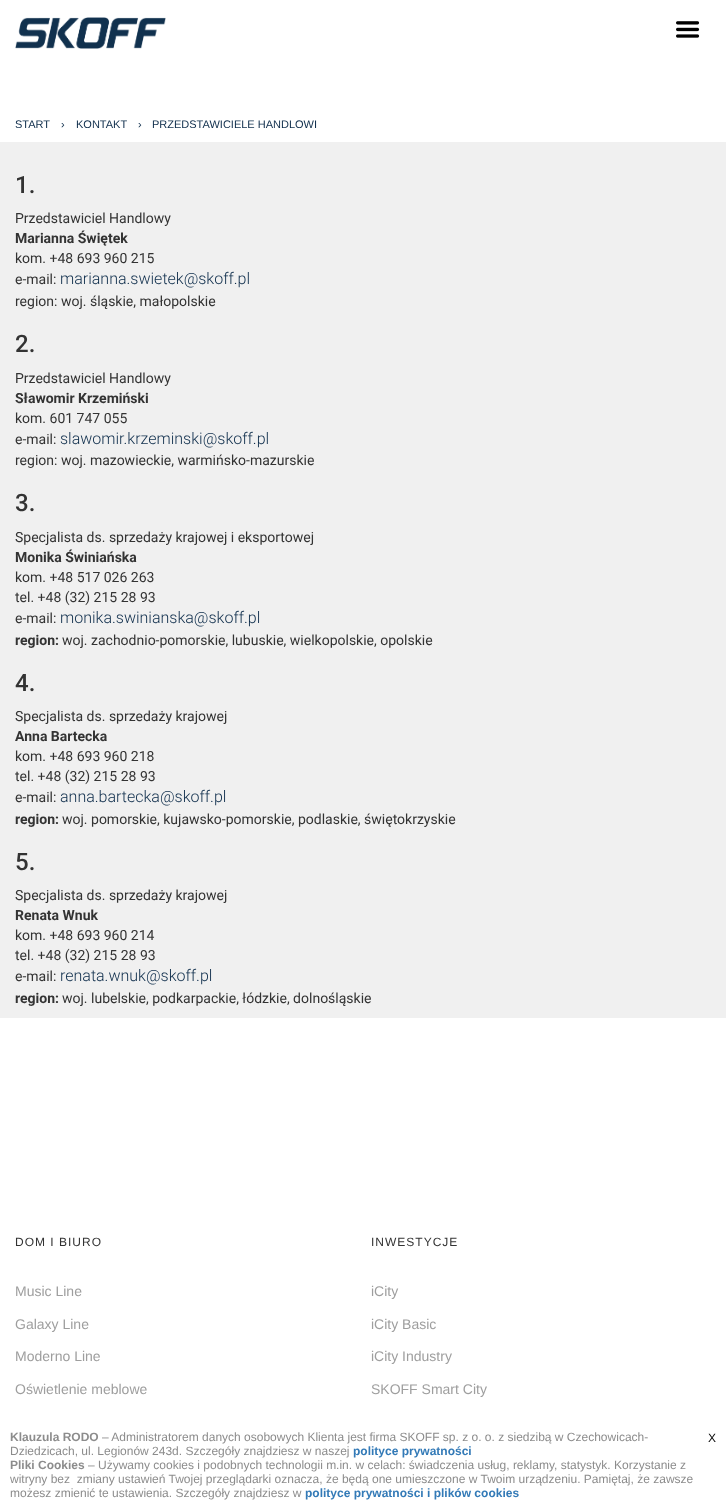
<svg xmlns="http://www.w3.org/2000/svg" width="726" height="1510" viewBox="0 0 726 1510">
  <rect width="100%" height="100%" fill="#ffffff"/>
  <image x="15" y="17" width="151" height="32" href="img1.png"/>
  <image x="676" y="21" width="24" height="17" href="img2.png"/>
  <text x="15" y="128" font-family="Liberation Sans" font-size="11" fill="#0e2d4b">START</text>
  <text x="61" y="128" font-family="Liberation Sans" font-size="11" fill="#0e2d4b">›</text>
  <text x="76" y="128" font-family="Liberation Sans" font-size="11" fill="#0e2d4b">KONTAKT</text>
  <text x="138" y="128" font-family="Liberation Sans" font-size="11" fill="#0e2d4b">›</text>
  <text x="152" y="128" font-family="Liberation Sans" font-size="11" fill="#0e2d4b">PRZEDSTAWICIELE HANDLOWI</text>
  <rect x="0" y="142" width="726" height="876" fill="#f0f0f0"/>
  <text x="15" y="193" font-family="Roboto" font-size="24" font-weight="500" fill="#333333">1.</text>
  <text x="15" y="223" font-family="Roboto" font-size="14" fill="#333333">Przedstawiciel Handlowy</text>
  <text x="15" y="243" font-family="Roboto" font-size="14" font-weight="bold" fill="#333333">Marianna Świętek</text>
  <text x="15" y="263" font-family="Roboto" font-size="14" fill="#333333">kom. +48 693 960 215</text>
  <text x="15" y="284" font-family="Roboto" font-size="14" fill="#333333">e-mail:</text>
  <text x="60" y="284" font-family="Roboto" font-size="16" font-weight="300" fill="#0e2d4b">marianna.swietek@skoff.pl</text>
  <text x="15" y="306" font-family="Roboto" font-size="14" fill="#333333">region: woj. śląskie, małopolskie</text>
  <text x="15" y="352" font-family="Roboto" font-size="24" font-weight="500" fill="#333333">2.</text>
  <text x="15" y="383" font-family="Roboto" font-size="14" fill="#333333">Przedstawiciel Handlowy</text>
  <text x="15" y="403" font-family="Roboto" font-size="14" font-weight="bold" fill="#333333">Sławomir Krzemiński</text>
  <text x="15" y="423" font-family="Roboto" font-size="14" fill="#333333">kom. 601 747 055</text>
  <text x="15" y="444" font-family="Roboto" font-size="14" fill="#333333">e-mail:</text>
  <text x="60" y="444" font-family="Roboto" font-size="16" font-weight="300" fill="#0e2d4b">slawomir.krzeminski@skoff.pl</text>
  <text x="15" y="465" font-family="Roboto" font-size="14" fill="#333333">region: woj. mazowieckie, warmińsko-mazurskie</text>
  <text x="15" y="511" font-family="Roboto" font-size="24" font-weight="500" fill="#333333">3.</text>
  <text x="15" y="542" font-family="Roboto" font-size="14" fill="#333333">Specjalista ds. sprzedaży krajowej i eksportowej</text>
  <text x="15" y="562" font-family="Roboto" font-size="14" font-weight="bold" fill="#333333">Monika Świniańska</text>
  <text x="15" y="582" font-family="Roboto" font-size="14" fill="#333333">kom. +48 517 026 263</text>
  <text x="15" y="602" font-family="Roboto" font-size="14" fill="#333333">tel. +48 (32) 215 28 93</text>
  <text x="15" y="623" font-family="Roboto" font-size="14" fill="#333333">e-mail:</text>
  <text x="60" y="623" font-family="Roboto" font-size="16" font-weight="300" fill="#0e2d4b">monika.swinianska@skoff.pl</text>
  <text x="15" y="645" font-family="Roboto" font-size="14" font-weight="bold" fill="#333333">region:</text>
  <text x="62" y="645" font-family="Roboto" font-size="14" fill="#333333">woj. zachodnio-pomorskie, lubuskie, wielkopolskie, opolskie</text>
  <text x="15" y="691" font-family="Roboto" font-size="24" font-weight="500" fill="#333333">4.</text>
  <text x="15" y="721" font-family="Roboto" font-size="14" fill="#333333">Specjalista ds. sprzedaży krajowej</text>
  <text x="15" y="741" font-family="Roboto" font-size="14" font-weight="bold" fill="#333333">Anna Bartecka</text>
  <text x="15" y="761" font-family="Roboto" font-size="14" fill="#333333">kom. +48 693 960 218</text>
  <text x="15" y="781" font-family="Roboto" font-size="14" fill="#333333">tel. +48 (32) 215 28 93</text>
  <text x="15" y="802" font-family="Roboto" font-size="14" fill="#333333">e-mail:</text>
  <text x="60" y="802" font-family="Roboto" font-size="16" font-weight="300" fill="#0e2d4b">anna.bartecka@skoff.pl</text>
  <text x="15" y="824" font-family="Roboto" font-size="14" font-weight="bold" fill="#333333">region:</text>
  <text x="62" y="824" font-family="Roboto" font-size="14" fill="#333333">woj. pomorskie, kujawsko-pomorskie, podlaskie, świętokrzyskie</text>
  <text x="15" y="870" font-family="Roboto" font-size="24" font-weight="500" fill="#333333">5.</text>
  <text x="15" y="900" font-family="Roboto" font-size="14" fill="#333333">Specjalista ds. sprzedaży krajowej</text>
  <text x="15" y="920" font-family="Roboto" font-size="14" font-weight="bold" fill="#333333">Renata Wnuk</text>
  <text x="15" y="940" font-family="Roboto" font-size="14" fill="#333333">kom. +48 693 960 214</text>
  <text x="15" y="960" font-family="Roboto" font-size="14" fill="#333333">tel. +48 (32) 215 28 93</text>
  <text x="15" y="981" font-family="Roboto" font-size="14" fill="#333333">e-mail:</text>
  <text x="60" y="981" font-family="Roboto" font-size="16" font-weight="300" fill="#0e2d4b">renata.wnuk@skoff.pl</text>
  <text x="15" y="1003" font-family="Roboto" font-size="14" font-weight="bold" fill="#333333">region:</text>
  <text x="62" y="1003" font-family="Roboto" font-size="14" fill="#333333">woj. lubelskie, podkarpackie, łódzkie, dolnośląskie</text>
  <text x="15" y="1246" font-family="Liberation Sans" font-size="12" letter-spacing="1" fill="#333333">DOM I BIURO</text>
  <text x="15" y="1296" font-family="Liberation Sans" font-size="14" fill="#9e9e9e">Music Line</text>
  <text x="15" y="1329" font-family="Liberation Sans" font-size="14" fill="#9e9e9e">Galaxy Line</text>
  <text x="15" y="1361" font-family="Liberation Sans" font-size="14" fill="#9e9e9e">Moderno Line</text>
  <text x="15" y="1394" font-family="Liberation Sans" font-size="14" fill="#9e9e9e">Oświetlenie meblowe</text>
  <text x="371" y="1246" font-family="Liberation Sans" font-size="12" letter-spacing="1" fill="#333333">INWESTYCJE</text>
  <text x="371" y="1296" font-family="Liberation Sans" font-size="14" fill="#9e9e9e">iCity</text>
  <text x="371" y="1329" font-family="Liberation Sans" font-size="14" fill="#9e9e9e">iCity Basic</text>
  <text x="371" y="1361" font-family="Liberation Sans" font-size="14" fill="#9e9e9e">iCity Industry</text>
  <text x="371" y="1394" font-family="Liberation Sans" font-size="14" fill="#9e9e9e">SKOFF Smart City</text>
  <text x="10" y="1441" font-family="Liberation Sans" font-size="12" font-weight="bold" fill="#8c8c8c">Klauzula RODO</text>
  <text x="102" y="1441" font-family="Liberation Sans" font-size="12" fill="#8c8c8c">– Administratorem danych osobowych Klienta jest firma SKOFF sp. z o. o. z siedzibą w Czechowicach-</text>
  <text x="10" y="1455" font-family="Liberation Sans" font-size="12" fill="#8c8c8c">Dziedzicach, ul. Legionów 243d. Szczegóły znajdziesz w naszej</text>
  <text x="353" y="1455" font-family="Liberation Sans" font-size="12" font-weight="bold" fill="#337ab7">polityce prywatności</text>
  <text x="10" y="1469" font-family="Liberation Sans" font-size="12" font-weight="bold" fill="#8c8c8c">Pliki Cookies</text>
  <text x="88" y="1469" font-family="Liberation Sans" font-size="12" fill="#8c8c8c">– Używamy cookies i podobnych technologii m.in. w celach: świadczenia usług, reklamy, statystyk. Korzystanie z</text>
  <text x="10" y="1483" font-family="Liberation Sans" font-size="12" fill="#8c8c8c" xml:space="preserve">witryny bez  zmiany ustawień Twojej przeglądarki oznacza, że będą one umieszczone w Twoim urządzeniu. Pamiętaj, że zawsze</text>
  <text x="10" y="1497" font-family="Liberation Sans" font-size="12" fill="#8c8c8c">możesz zmienić te ustawienia. Szczegóły znajdziesz w</text>
  <text x="305" y="1497" font-family="Liberation Sans" font-size="12" font-weight="bold" fill="#337ab7">polityce prywatności i plików cookies</text>
  <text x="708" y="1442" font-family="Liberation Sans" font-size="12" fill="#0a0a0a">X</text>
</svg>
